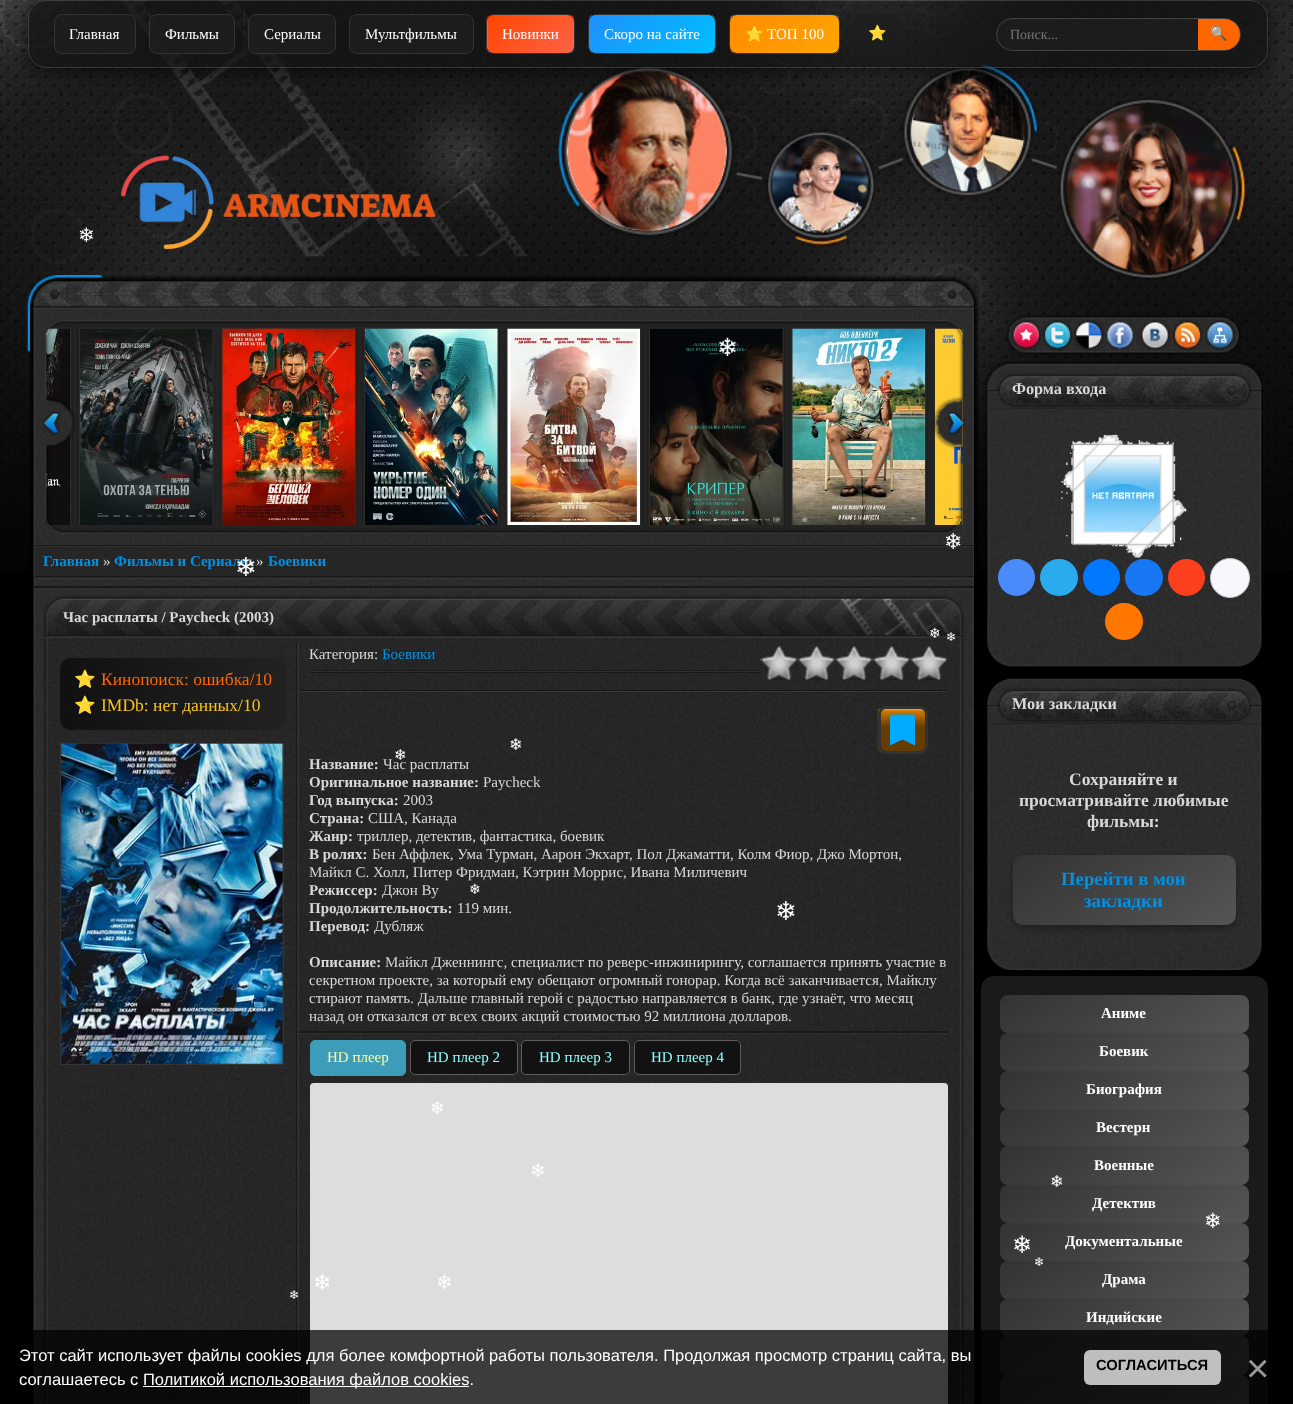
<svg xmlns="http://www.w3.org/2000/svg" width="1293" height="1404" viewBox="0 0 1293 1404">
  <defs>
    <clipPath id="clip1"><path d="M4 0H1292V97H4ZM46 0H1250C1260 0 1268 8 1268 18V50C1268 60 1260 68 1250 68H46C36 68 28 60 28 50V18C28 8 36 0 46 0Z" clip-rule="evenodd"/></clipPath>
    <filter id="blur1" x="-50%" y="-200%" width="200%" height="500%"><feGaussianBlur stdDeviation="7.5"/></filter>
    <clipPath id="clip2"><rect x="486" y="14" width="89" height="40" rx="8"/></clipPath>
    <linearGradient id="g1" gradientUnits="userSpaceOnUse" x1="413" y1="2.8" x2="475" y2="65"><stop offset="0" stop-color="#ff4500"/><stop offset="1" stop-color="#ff6347"/></linearGradient>
    <linearGradient id="g2" gradientUnits="userSpaceOnUse" x1="500" y1="2.8" x2="562" y2="65"><stop offset="0" stop-color="#ff4500"/><stop offset="1" stop-color="#ff6347"/></linearGradient>
    <clipPath id="clip3"><rect x="588" y="14" width="128" height="40" rx="8"/></clipPath>
    <linearGradient id="g3" gradientUnits="userSpaceOnUse" x1="611" y1="-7.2" x2="693" y2="75"><stop offset="0" stop-color="#1e90ff"/><stop offset="1" stop-color="#00bfff"/></linearGradient>
    <clipPath id="clip4"><rect x="729" y="14" width="111" height="40" rx="8"/></clipPath>
    <linearGradient id="g4" gradientUnits="userSpaceOnUse" x1="748" y1="-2.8" x2="821" y2="70"><stop offset="0" stop-color="#ff8c00"/><stop offset="1" stop-color="#ffa500"/></linearGradient>
    <linearGradient id="g5" gradientUnits="userSpaceOnUse" x1="60" y1="694" x2="286" y2="694"><stop offset="0" stop-color="#111111"/><stop offset="1" stop-color="#222222"/></linearGradient>
    <filter id="blur2" x="-50%" y="-200%" width="200%" height="500%"><feGaussianBlur stdDeviation="4"/></filter>
    <linearGradient id="g6" gradientUnits="userSpaceOnUse" x1="1071" y1="814" x2="1178" y2="966"><stop offset="0" stop-color="#333333"/><stop offset="1" stop-color="#555555"/></linearGradient>
    <linearGradient id="g7" gradientUnits="userSpaceOnUse" x1="1075" y1="943" x2="1174" y2="1085"><stop offset="0" stop-color="#333333"/><stop offset="1" stop-color="#555555"/></linearGradient>
    <linearGradient id="g8" gradientUnits="userSpaceOnUse" x1="1074" y1="980" x2="1174" y2="1123"><stop offset="0" stop-color="#333333"/><stop offset="1" stop-color="#555555"/></linearGradient>
    <linearGradient id="g9" gradientUnits="userSpaceOnUse" x1="1075" y1="1019" x2="1174" y2="1161"><stop offset="0" stop-color="#333333"/><stop offset="1" stop-color="#555555"/></linearGradient>
    <linearGradient id="g10" gradientUnits="userSpaceOnUse" x1="1075" y1="1056" x2="1174" y2="1199"><stop offset="0" stop-color="#333333"/><stop offset="1" stop-color="#555555"/></linearGradient>
    <linearGradient id="g11" gradientUnits="userSpaceOnUse" x1="1074" y1="1094" x2="1174" y2="1237"><stop offset="0" stop-color="#333333"/><stop offset="1" stop-color="#555555"/></linearGradient>
    <linearGradient id="g12" gradientUnits="userSpaceOnUse" x1="1075" y1="1133" x2="1174" y2="1275"><stop offset="0" stop-color="#333333"/><stop offset="1" stop-color="#555555"/></linearGradient>
    <linearGradient id="g13" gradientUnits="userSpaceOnUse" x1="1074" y1="1170" x2="1174" y2="1313"><stop offset="0" stop-color="#333333"/><stop offset="1" stop-color="#555555"/></linearGradient>
    <linearGradient id="g14" gradientUnits="userSpaceOnUse" x1="1075" y1="1209" x2="1174" y2="1351"><stop offset="0" stop-color="#333333"/><stop offset="1" stop-color="#555555"/></linearGradient>
    <linearGradient id="g15" gradientUnits="userSpaceOnUse" x1="1075" y1="1246" x2="1174" y2="1389"><stop offset="0" stop-color="#333333"/><stop offset="1" stop-color="#555555"/></linearGradient>
    <linearGradient id="g16" gradientUnits="userSpaceOnUse" x1="1074" y1="1284" x2="1174" y2="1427"><stop offset="0" stop-color="#333333"/><stop offset="1" stop-color="#555555"/></linearGradient>
    <linearGradient id="g17" gradientUnits="userSpaceOnUse" x1="1075" y1="1323" x2="1174" y2="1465"><stop offset="0" stop-color="#333333"/><stop offset="1" stop-color="#555555"/></linearGradient>
  </defs>
  <rect width="100%" height="100%" fill="#000000"/>
  <image x="0" y="541" width="1293" height="29" href="img1.png"/>
  <image x="0" y="0" width="1293" height="541" href="img2.png"/>
  <g clip-path="url(#clip1)">
    <rect x="28" y="5" width="1240" height="68" rx="18" fill="#000000" fill-opacity="0.5" filter="url(#blur1)"/>
  </g>
  <rect x="28" y="0" width="1240" height="68" rx="18" fill="#141414" fill-opacity="0.7"/>
  <rect x="28.5" y="0.5" width="1239" height="67" rx="17.5" fill="none" stroke="#ffffff" stroke-opacity="0.15"/>
  <rect x="54.5" y="14.5" width="81" height="39" rx="7.5" fill="#1e1e1e" fill-opacity="0.8" stroke="#333333"/>
  <text x="69" y="39" font-family="Liberation Serif" font-size="15" fill="#ffffff">Главная</text>
  <rect x="149.5" y="14.5" width="85" height="39" rx="7.5" fill="#1e1e1e" fill-opacity="0.8" stroke="#333333"/>
  <text x="165" y="39" font-family="Liberation Serif" font-size="15" fill="#ffffff">Фильмы</text>
  <rect x="248.5" y="14.5" width="87" height="39" rx="7.5" fill="#1e1e1e" fill-opacity="0.8" stroke="#333333"/>
  <text x="264" y="39" font-family="Liberation Serif" font-size="15" fill="#ffffff">Сериалы</text>
  <rect x="349.5" y="14.5" width="124" height="39" rx="7.5" fill="#1e1e1e" fill-opacity="0.8" stroke="#333333"/>
  <text x="365" y="39" font-family="Liberation Serif" font-size="15" fill="#ffffff">Мультфильмы</text>
  <g clip-path="url(#clip2)">
    <rect x="486" y="15" width="2" height="38" fill="url(#g1)"/>
    <rect x="488" y="15" width="86" height="38" fill="url(#g2)"/>
  </g>
  <rect x="486.5" y="14.5" width="88" height="39" rx="7.5" fill="none" stroke="#333333"/>
  <text x="502" y="39" font-family="Liberation Serif" font-size="15" fill="#ffffff">Новинки</text>
  <g clip-path="url(#clip3)">
    <rect x="589" y="15" width="126" height="38" fill="url(#g3)"/>
  </g>
  <rect x="588.5" y="14.5" width="127" height="39" rx="7.5" fill="none" stroke="#333333"/>
  <text x="604" y="39" font-family="Liberation Serif" font-size="15" fill="#ffffff">Скоро на сайте</text>
  <g clip-path="url(#clip4)">
    <rect x="730" y="15" width="109" height="38" fill="url(#g4)"/>
  </g>
  <rect x="729.5" y="14.5" width="110" height="39" rx="7.5" fill="none" stroke="#333333"/>
  <text x="745" y="39" font-family="Noto Color Emoji" font-size="15" fill="#ffffff">⭐</text>
  <text x="767" y="39" font-family="Liberation Serif" font-size="15" fill="#ffffff">ТОП 100</text>
  <rect x="853" y="14" width="48" height="37" rx="8" fill="#1e1e1e" fill-opacity="0.8"/>
  <text x="868" y="38" font-family="Noto Color Emoji" font-size="15" fill="#ffffff">⭐</text>
  <rect x="996.5" y="18.5" width="244" height="32" rx="16" fill="#1c1c1c" stroke="#444444"/>
  <text x="1010" y="39" font-family="Liberation Serif" font-size="14" fill="#757575">Поиск...</text>
  <path d="M1198 19H1224.5C1233 19 1240 26 1240 34.5C1240 43 1233 50 1224.5 50H1198Z" fill="#ff6600"/>
  <text x="1210" y="38" font-family="Noto Color Emoji" font-size="14" fill="#ffffff">🔍</text>
  <image x="120" y="155" width="316" height="95" href="img3.png"/>
  <image x="29" y="307" width="950" height="1097" href="img7.png"/>
  <image x="33" y="307" width="941" height="1097" href="img8.png"/>
  <image x="29" y="275" width="951" height="33" href="img4.png"/>
  <image x="27" y="275" width="76" height="33" href="img5.png"/>
  <image x="27" y="307" width="3" height="46" href="img6.png"/>
  <rect x="34" y="308" width="940" height="1" fill="#363636"/>
  <image x="45" y="320" width="918" height="214" href="img9.png"/>
  <image x="48" y="326" width="25" height="199" href="img14.png"/>
  <image x="46" y="328" width="24" height="197" href="img15.png"/>
  <image x="45" y="321" width="31" height="212" href="img10.png"/>
  <image x="42" y="411" width="18" height="24" href="img11.png"/>
  <image x="934" y="326" width="27" height="199" href="img24.png"/>
  <image x="935" y="328" width="28" height="197" href="img25.png"/>
  <image x="931" y="320" width="32" height="213" href="img12.png"/>
  <image x="948" y="411" width="17" height="24" href="img13.png"/>
  <image x="77" y="326" width="138" height="199" href="img16.png"/>
  <image x="80" y="328" width="133" height="197" href="img17.png"/>
  <image x="220" y="326" width="138" height="199" href="img18.png"/>
  <image x="222" y="328" width="133" height="197" href="img19.png"/>
  <image x="362" y="326" width="138" height="199" href="img16.png"/>
  <image x="365" y="328" width="133" height="197" href="img20.png"/>
  <image x="505" y="326" width="138" height="199" href="img18.png"/>
  <image x="507" y="328" width="133" height="197" href="img21.png"/>
  <image x="647" y="326" width="138" height="199" href="img16.png"/>
  <image x="650" y="328" width="133" height="197" href="img22.png"/>
  <image x="790" y="326" width="138" height="199" href="img18.png"/>
  <image x="792" y="328" width="133" height="197" href="img23.png"/>
  <rect x="35" y="547" width="938" height="31" fill="#262626"/>
  <rect x="34" y="545" width="940" height="1" fill="#181818"/>
  <rect x="34" y="578" width="940" height="1" fill="#363636"/>
  <rect x="34" y="546" width="940" height="1" fill="#303030"/>
  <rect x="34" y="576" width="940" height="1" fill="#181818"/>
  <rect x="34" y="546" width="1" height="32" fill="#303030"/>
  <text x="43" y="566" font-family="Liberation Serif" font-size="15" font-weight="bold" fill="#0090e4">Главная</text>
  <text x="103" y="566" font-family="Liberation Serif" font-size="15" fill="#d8d8d8">»</text>
  <text x="114" y="566" font-family="Liberation Serif" font-size="15" font-weight="bold" fill="#0090e4">Фильмы и Сериалы</text>
  <text x="256" y="566" font-family="Liberation Serif" font-size="15" fill="#d8d8d8">»</text>
  <text x="268" y="566" font-family="Liberation Serif" font-size="15" font-weight="bold" fill="#0090e4">Боевики</text>
  <rect x="34" y="586" width="940" height="2" fill="#181818"/>
  <rect x="34" y="588" width="940" height="1" fill="#303030"/>
  <image x="42" y="595" width="923" height="809" href="img26.png"/>
  <rect x="43" y="637" width="922" height="1" fill="#353535"/>
  <image x="43" y="595" width="922" height="43" href="img27.png"/>
  <text x="63" y="622" font-family="Liberation Serif" font-size="15" font-weight="bold" fill="#d8d8d8">Час расплаты / Paycheck (2003)</text>
  <image x="298" y="690" width="649" height="1" href="img30.png"/>
  <rect x="298" y="691" width="650" height="1" fill="#363636"/>
  <image x="297" y="642" width="2" height="762" href="img28.png"/>
  <rect x="296" y="643" width="1" height="761" fill="#181818"/>
  <rect x="60" y="658" width="226" height="72" rx="10" fill="url(#g5)"/>
  <text x="74" y="685" font-family="Noto Color Emoji" font-size="17.5" fill="#ff6600">⭐</text>
  <text x="101" y="685" font-family="Liberation Serif" font-size="17.5" fill="#ff6600">Кинопоиск: ошибка/10</text>
  <text x="74" y="711" font-family="Noto Color Emoji" font-size="17.5" fill="#f5c518">⭐</text>
  <text x="101" y="711" font-family="Liberation Serif" font-size="17.5" fill="#f5c518">IMDb: нет данных/10</text>
  <rect x="60.5" y="743.5" width="223" height="321" fill="none" stroke="#353535"/>
  <image x="61" y="743" width="222" height="321" href="img29.png"/>
  <text x="309" y="659" font-family="Liberation Serif" font-size="15" fill="#d8d8d8">Категория:</text>
  <text x="382" y="659" font-family="Liberation Serif" font-size="15" fill="#0090e4">Боевики</text>
  <image x="760" y="646" width="188" height="35" href="img31.png"/>
  <rect x="310" y="670" width="450" height="3" fill="#181818"/>
  <rect x="310" y="671" width="450" height="1" fill="#303030"/>
  <image x="877" y="708" width="51" height="46" href="img32.png"/>
  <rect x="879.5" y="707.5" width="47" height="45" rx="6.5" fill="none" stroke="#323232" stroke-width="3"/>
  <path d="M893 714.5C891.5 714.5 890 716 890 717.5V745.5L902.5 739.5L915 745.5V717.5C915 716 913.5 714.5 912 714.5Z" fill="#00aaff"/>
  <text x="309" y="769" font-family="Liberation Serif" font-size="15" font-weight="bold" fill="#d8d8d8">Название:</text>
  <text x="383" y="769" font-family="Liberation Serif" font-size="15" fill="#d8d8d8">Час расплаты</text>
  <text x="309" y="787" font-family="Liberation Serif" font-size="15" font-weight="bold" fill="#d8d8d8">Оригинальное название:</text>
  <text x="483" y="787" font-family="Liberation Serif" font-size="15" fill="#d8d8d8">Paycheck</text>
  <text x="309" y="805" font-family="Liberation Serif" font-size="15" font-weight="bold" fill="#d8d8d8">Год выпуска:</text>
  <text x="403" y="805" font-family="Liberation Serif" font-size="15" fill="#d8d8d8">2003</text>
  <text x="309" y="823" font-family="Liberation Serif" font-size="15" font-weight="bold" fill="#d8d8d8">Страна:</text>
  <text x="368" y="823" font-family="Liberation Serif" font-size="15" fill="#d8d8d8">США, Канада</text>
  <text x="309" y="841" font-family="Liberation Serif" font-size="15" font-weight="bold" fill="#d8d8d8">Жанр:</text>
  <text x="357" y="841" font-family="Liberation Serif" font-size="15" fill="#d8d8d8">триллер, детектив, фантастика, боевик</text>
  <text x="309" y="859" font-family="Liberation Serif" font-size="15" font-weight="bold" fill="#d8d8d8">В ролях:</text>
  <text x="372" y="859" font-family="Liberation Serif" font-size="15" fill="#d8d8d8">Бен Аффлек, Ума Турман, Аарон Экхарт, Пол Джаматти, Колм Фиор, Джо Мортон,</text>
  <text x="309" y="877" font-family="Liberation Serif" font-size="15" fill="#d8d8d8">Майкл С. Холл, Питер Фридман, Кэтрин Моррис, Ивана Миличевич</text>
  <text x="309" y="895" font-family="Liberation Serif" font-size="15" font-weight="bold" fill="#d8d8d8">Режиссер:</text>
  <text x="382" y="895" font-family="Liberation Serif" font-size="15" fill="#d8d8d8">Джон Ву</text>
  <text x="309" y="913" font-family="Liberation Serif" font-size="15" font-weight="bold" fill="#d8d8d8">Продолжительность:</text>
  <text x="457" y="913" font-family="Liberation Serif" font-size="15" fill="#d8d8d8">119 мин.</text>
  <text x="309" y="931" font-family="Liberation Serif" font-size="15" font-weight="bold" fill="#d8d8d8">Перевод:</text>
  <text x="374" y="931" font-family="Liberation Serif" font-size="15" fill="#d8d8d8">Дубляж</text>
  <text x="309" y="967" font-family="Liberation Serif" font-size="15" font-weight="bold" fill="#d8d8d8">Описание:</text>
  <text x="385" y="967" font-family="Liberation Serif" font-size="15" fill="#d8d8d8">Майкл Дженнингс, специалист по реверс-инжинирингу, соглашается принять участие в</text>
  <text x="309" y="985" font-family="Liberation Serif" font-size="15" fill="#d8d8d8">секретном проекте, за который ему обещают огромный гонорар. Когда всё заканчивается, Майклу</text>
  <text x="309" y="1003" font-family="Liberation Serif" font-size="15" fill="#d8d8d8">стирают память. Дальше главный герой с радостью направляется в банк, где узнаёт, что месяц</text>
  <text x="309" y="1021" font-family="Liberation Serif" font-size="15" fill="#d8d8d8">назад он отказался от всех своих акций стоимостью 92 миллиона долларов.</text>
  <rect x="299" y="1031" width="649" height="2" fill="#181818"/>
  <rect x="299" y="1033" width="649" height="1" fill="#303030"/>
  <rect x="310.5" y="1040.5" width="95" height="35" rx="4.5" fill="#3c9cb9" stroke="#3c9cb9"/>
  <text x="327" y="1062" font-family="Liberation Serif" font-size="15" fill="#fffaa5">HD плеер</text>
  <rect x="410.5" y="1040.5" width="107" height="34" rx="4.5" fill="#121212" stroke="#5e5e5e"/>
  <text x="427" y="1062" font-family="Liberation Serif" font-size="15" fill="#8efffb">HD плеер 2</text>
  <rect x="521.5" y="1040.5" width="108" height="34" rx="4.5" fill="#121212" stroke="#5e5e5e"/>
  <text x="539" y="1062" font-family="Liberation Serif" font-size="15" fill="#8efffb">HD плеер 3</text>
  <rect x="634.5" y="1040.5" width="106" height="34" rx="4.5" fill="#121212" stroke="#5e5e5e"/>
  <text x="651" y="1062" font-family="Liberation Serif" font-size="15" fill="#8efffb">HD плеер 4</text>
  <rect x="310" y="1083" width="638" height="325" rx="4" fill="#dedddd"/>
  <image x="1006" y="315" width="235" height="40" href="img33.png"/>
  <image x="1011" y="320" width="30" height="30" href="img34.png"/>
  <image x="1042" y="320" width="31" height="31" href="img35.png"/>
  <image x="1074" y="320" width="30" height="31" href="img36.png"/>
  <image x="1107" y="322" width="32" height="27" href="img37.png"/>
  <image x="1140" y="320" width="30" height="30" href="img38.png"/>
  <image x="1172" y="320" width="31" height="31" href="img39.png"/>
  <image x="1205" y="320" width="30" height="30" href="img40.png"/>
  <image x="987" y="621" width="275" height="46" href="img41.png"/>
  <image x="985" y="361" width="278" height="48" href="img42.png"/>
  <text x="1012" y="394" font-family="Liberation Serif" font-size="16.25" font-weight="bold" fill="#d8d8d8">Форма входа</text>
  <image x="985" y="408" width="278" height="232" href="img43.png"/>
  <image x="1061" y="434" width="126" height="124" href="img44.png"/>
  <circle cx="1016.5" cy="577.5" r="18.5" fill="#498bfa"/>
  <rect x="1040" y="559" width="38" height="37" rx="18.5" fill="#2aabee"/>
  <circle cx="1101.5" cy="577.5" r="18.5" fill="#0077ff"/>
  <rect x="1125" y="559" width="38" height="37" rx="18.5" fill="#1877f2"/>
  <circle cx="1186.5" cy="577.5" r="18.5" fill="#fc3f1d"/>
  <circle cx="1230" cy="578" r="19.5" fill="#f8f8fc" stroke="#c4c4c4"/>
  <rect x="1105" y="603" width="38" height="37" rx="18.5" fill="#ff7700"/>
  <image x="987" y="925" width="275" height="46" href="img45.png"/>
  <image x="987" y="678" width="275" height="46" href="img46.png"/>
  <text x="1012" y="709" font-family="Liberation Serif" font-size="16.25" font-weight="bold" fill="#d8d8d8">Мои закладки</text>
  <image x="987" y="723" width="275" height="221" href="img47.png"/>
  <text x="1069" y="785" font-family="Liberation Serif" font-size="17.5" font-weight="bold" fill="#d8d8d8">Сохраняйте и</text>
  <text x="1019" y="806" font-family="Liberation Serif" font-size="17.5" font-weight="bold" fill="#d8d8d8">просматривайте любимые</text>
  <text x="1087" y="827" font-family="Liberation Serif" font-size="17.5" font-weight="bold" fill="#d8d8d8">фильмы:</text>
  <rect x="1013" y="859" width="223" height="70" rx="10" fill="#000000" fill-opacity="0.3" filter="url(#blur2)"/>
  <rect x="1013" y="855" width="223" height="70" rx="10" fill="url(#g6)"/>
  <text x="1061" y="885" font-family="Liberation Serif" font-size="18.75" font-weight="bold" fill="#0090e4">Перейти в мои</text>
  <text x="1084" y="907" font-family="Liberation Serif" font-size="18.75" font-weight="bold" fill="#0090e4">закладки</text>
  <rect x="981" y="976" width="287" height="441" rx="13" fill="#1a1a1a"/>
  <rect x="1000" y="995" width="249" height="38" rx="8" fill="url(#g7)"/>
  <text x="1101" y="1018" font-family="Liberation Serif" font-size="15" font-weight="bold" fill="#ffffff">Аниме</text>
  <rect x="1000" y="1033" width="249" height="38" rx="8" fill="url(#g8)"/>
  <text x="1099" y="1056" font-family="Liberation Serif" font-size="15" font-weight="bold" fill="#ffffff">Боевик</text>
  <rect x="1000" y="1071" width="249" height="38" rx="8" fill="url(#g9)"/>
  <text x="1086" y="1094" font-family="Liberation Serif" font-size="15" font-weight="bold" fill="#ffffff">Биография</text>
  <rect x="1000" y="1109" width="249" height="37" rx="8" fill="url(#g10)"/>
  <text x="1096" y="1132" font-family="Liberation Serif" font-size="15" font-weight="bold" fill="#ffffff">Вестерн</text>
  <rect x="1000" y="1146" width="249" height="39" rx="8" fill="url(#g11)"/>
  <text x="1094" y="1170" font-family="Liberation Serif" font-size="15" font-weight="bold" fill="#ffffff">Военные</text>
  <rect x="1000" y="1185" width="249" height="38" rx="8" fill="url(#g12)"/>
  <text x="1092" y="1208" font-family="Liberation Serif" font-size="15" font-weight="bold" fill="#ffffff">Детектив</text>
  <rect x="1000" y="1223" width="249" height="38" rx="8" fill="url(#g13)"/>
  <text x="1065" y="1246" font-family="Liberation Serif" font-size="15" font-weight="bold" fill="#ffffff">Документальные</text>
  <rect x="1000" y="1261" width="249" height="38" rx="8" fill="url(#g14)"/>
  <text x="1102" y="1284" font-family="Liberation Serif" font-size="15" font-weight="bold" fill="#ffffff">Драма</text>
  <rect x="1000" y="1299" width="249" height="37" rx="8" fill="url(#g15)"/>
  <text x="1086" y="1322" font-family="Liberation Serif" font-size="15" font-weight="bold" fill="#ffffff">Индийские</text>
  <rect x="1000" y="1336" width="249" height="39" rx="8" fill="url(#g16)"/>
  <rect x="1000" y="1375" width="249" height="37" rx="8" fill="url(#g17)"/>
  <text x="78" y="242" font-family="DejaVu Sans" font-size="20" fill="#ffffff">❄</text>
  <text x="717" y="356" font-family="DejaVu Sans" font-size="25" fill="#ffffff">❄</text>
  <text x="944" y="549" font-family="DejaVu Sans" font-size="22" fill="#ffffff">❄</text>
  <text x="235" y="576" font-family="DejaVu Sans" font-size="26" fill="#ffffff">❄</text>
  <text x="929" y="638" font-family="DejaVu Sans" font-size="14" fill="#ffffff">❄</text>
  <text x="946" y="641" font-family="DejaVu Sans" font-size="12" fill="#ffffff">❄</text>
  <text x="509" y="750" font-family="DejaVu Sans" font-size="16.25" fill="#ffffff">❄</text>
  <text x="394" y="760" font-family="DejaVu Sans" font-size="15" fill="#ffffff">❄</text>
  <text x="469" y="894" font-family="DejaVu Sans" font-size="14" fill="#ffffff">❄</text>
  <text x="775" y="920" font-family="DejaVu Sans" font-size="26" fill="#ffffff">❄</text>
  <text x="430" y="1114" font-family="DejaVu Sans" font-size="17.5" fill="#ffffff">❄</text>
  <text x="530" y="1177" font-family="DejaVu Sans" font-size="18.75" fill="#ffffff">❄</text>
  <text x="1050" y="1187" font-family="DejaVu Sans" font-size="16.25" fill="#ffffff">❄</text>
  <text x="1204" y="1228" font-family="DejaVu Sans" font-size="21" fill="#ffffff">❄</text>
  <text x="1012" y="1253" font-family="DejaVu Sans" font-size="24" fill="#ffffff">❄</text>
  <text x="1034" y="1266" font-family="DejaVu Sans" font-size="12" fill="#ffffff">❄</text>
  <text x="313" y="1290" font-family="DejaVu Sans" font-size="22" fill="#ffffff">❄</text>
  <text x="436" y="1289" font-family="DejaVu Sans" font-size="20" fill="#ffffff">❄</text>
  <text x="289" y="1299" font-family="DejaVu Sans" font-size="12" fill="#ffffff">❄</text>
  <rect x="33" y="1330" width="1235" height="74" fill="#000000" fill-opacity="0.73"/>
  <text x="19" y="1361" font-family="Liberation Sans" font-size="16.5" fill="#ffffff">Этот сайт использует файлы cookies для более комфортной работы пользователя. Продолжая просмотр страниц сайта, вы</text>
  <text x="19" y="1385" font-family="Liberation Sans" font-size="16.5" fill="#ffffff">соглашаетесь с</text>
  <rect x="143" y="1386" width="326" height="1" fill="#ffffff"/>
  <text x="143" y="1385" font-family="Liberation Sans" font-size="16.5" fill="#ffffff">Политикой использования файлов cookies.</text>
  <rect x="1084" y="1350" width="137" height="35" rx="6" fill="#ffffff" fill-opacity="0.73"/>
  <text x="1096" y="1370" font-family="Liberation Sans" font-size="14.75" font-weight="bold" fill="#000000">СОГЛАСИТЬСЯ</text>
  <text x="1246" y="1382" font-family="Liberation Sans" font-size="40" fill="#999999">×</text>
</svg>
